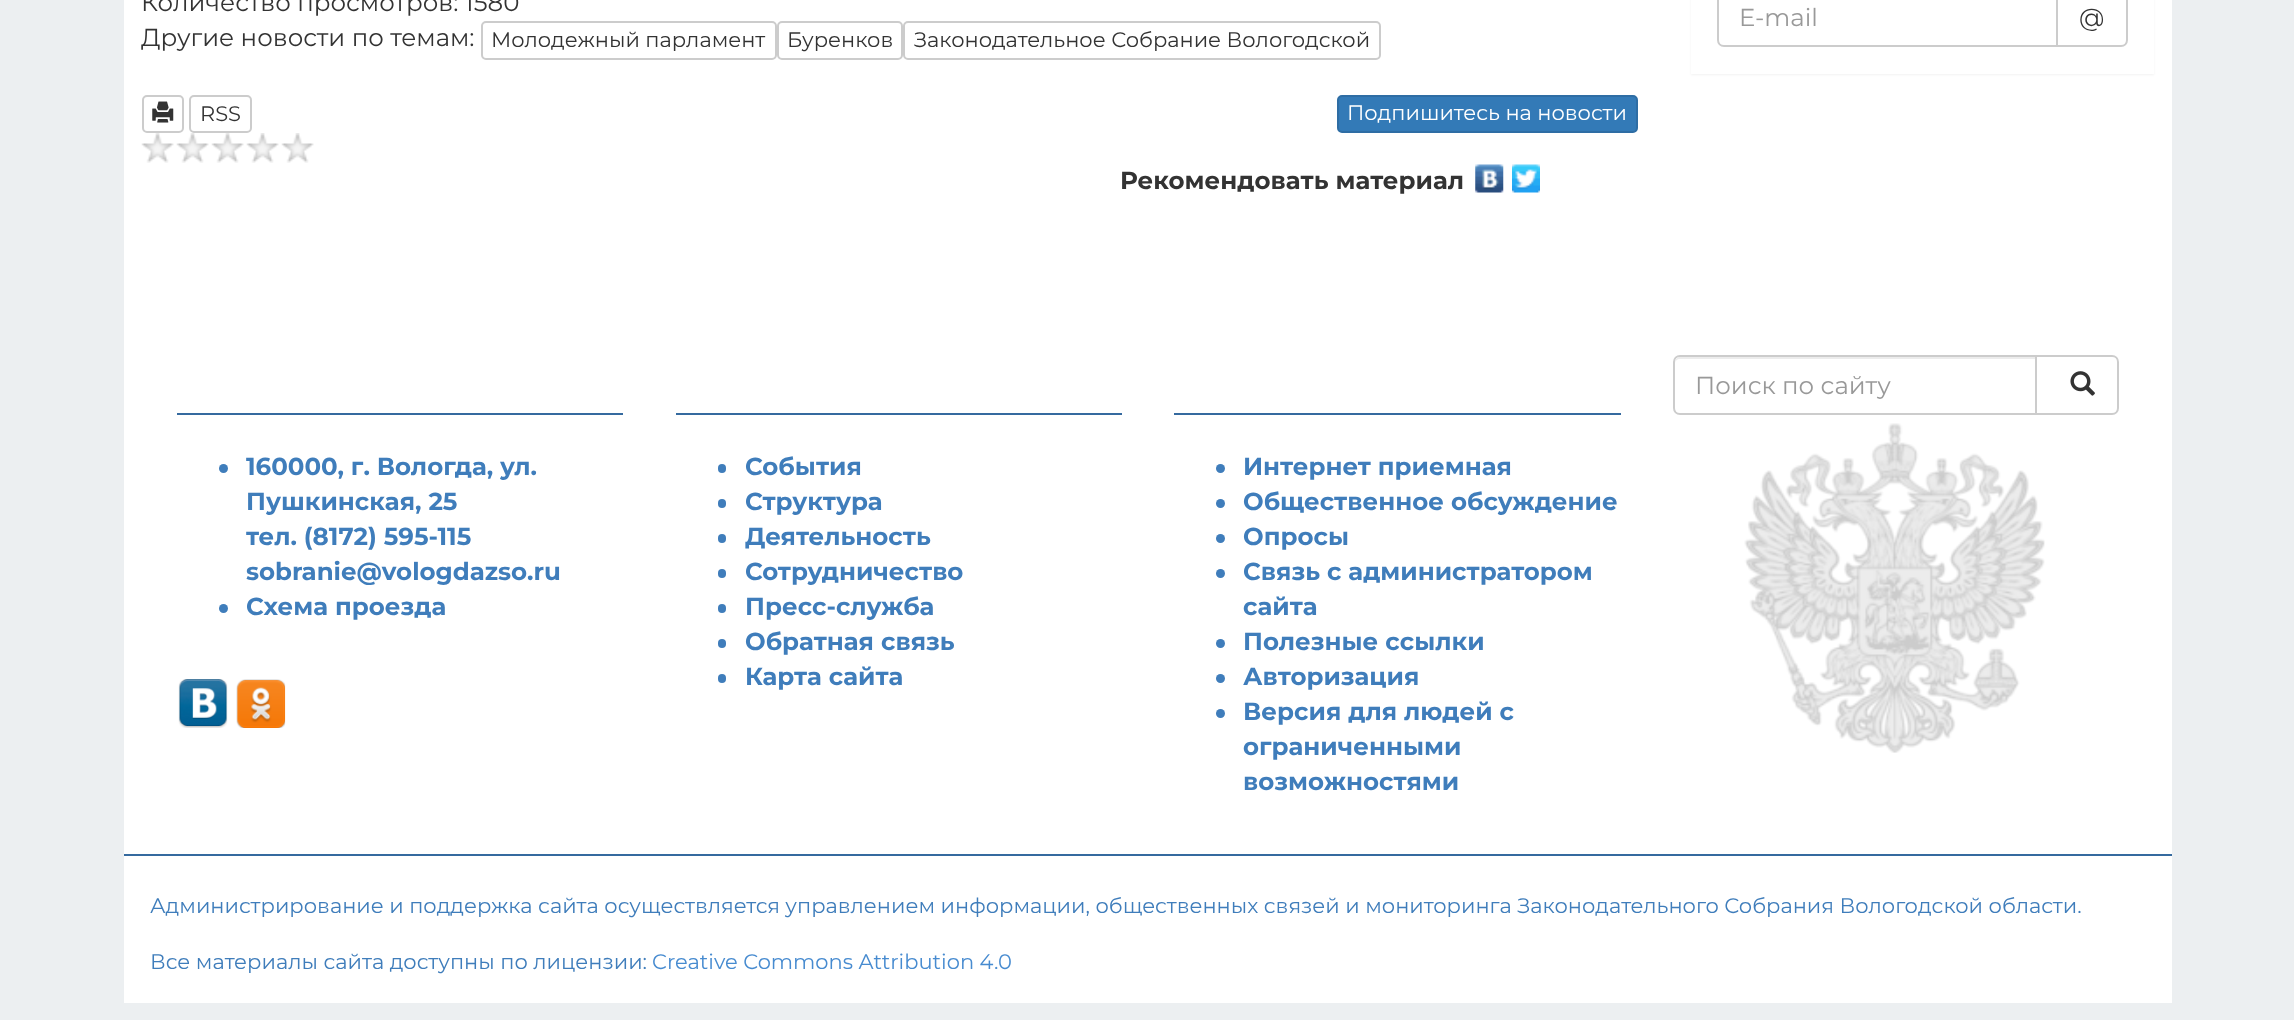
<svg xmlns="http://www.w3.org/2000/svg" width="2294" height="1020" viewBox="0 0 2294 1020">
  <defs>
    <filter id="blur1" x="-50%" y="-200%" width="200%" height="500%"><feGaussianBlur stdDeviation="1"/></filter>
  </defs>
  <rect width="100%" height="100%" fill="#eceff1"/>
  <rect x="124" y="0" width="2048" height="1003" fill="#ffffff"/>
  <text x="141" y="11" font-family="Montserrat" font-size="24.5" fill="#333333">Количество просмотров: 1580</text>
  <text x="141" y="46" font-family="Montserrat" font-size="24.5" fill="#333333">Другие новости по темам:</text>
  <rect x="482" y="22" width="294" height="37" rx="4" fill="none" stroke="#cccccc" stroke-width="2"/>
  <text x="491" y="47" font-family="Montserrat" font-size="21" fill="#333333">Молодежный парламент</text>
  <rect x="778" y="22" width="124" height="37" rx="4" fill="none" stroke="#cccccc" stroke-width="2"/>
  <text x="787" y="47" font-family="Montserrat" font-size="21" fill="#333333">Буренков</text>
  <rect x="904" y="22" width="476" height="37" rx="4" fill="none" stroke="#cccccc" stroke-width="2"/>
  <text x="914" y="47" font-family="Montserrat" font-size="21" fill="#333333">Законодательное Собрание Вологодской</text>
  <rect x="143" y="96" width="40" height="36" rx="4" fill="none" stroke="#cccccc" stroke-width="2"/>
  <image x="152" y="101" width="22" height="22" href="img1.png"/>
  <rect x="190" y="96" width="61" height="36" rx="4" fill="none" stroke="#cccccc" stroke-width="2"/>
  <text x="200" y="121" font-family="Montserrat" font-size="21" fill="#333333">RSS</text>
  <rect x="1338" y="96" width="299" height="36" rx="4" fill="#337ab7" stroke="#2e6da4" stroke-width="2"/>
  <text x="1347" y="120" font-family="Montserrat" font-size="21" fill="#ffffff">Подпишитесь на новости</text>
  <image x="141" y="133" width="33" height="30" href="img2.png"/>
  <image x="176" y="133" width="33" height="30" href="img3.png"/>
  <image x="211" y="133" width="33" height="30" href="img3.png"/>
  <image x="246" y="133" width="33" height="30" href="img2.png"/>
  <image x="281" y="133" width="33" height="30" href="img2.png"/>
  <text x="1120" y="189" font-family="Montserrat" font-size="24.5" font-weight="bold" fill="#333333">Рекомендовать материал</text>
  <image x="1475" y="164" width="29" height="29" href="img4.png"/>
  <image x="1512" y="164" width="28" height="29" href="img5.png"/>
  <rect x="1691" y="-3" width="463" height="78" fill="#000000" fill-opacity="0.05" filter="url(#blur1)"/>
  <rect x="1691" y="0" width="463" height="74" fill="#ffffff"/>
  <path d="M1724-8H2057V46H1724C1720.5 46 1718 43.5 1718 40V-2C1718-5.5 1720.5-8 1724-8Z" fill="none" stroke="#cccccc" stroke-width="2"/>
  <text x="1739" y="26" font-family="Montserrat" font-size="24.5" fill="#999999">E-mail</text>
  <path d="M2057-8H2121C2124.5-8 2127-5.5 2127-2V40C2127 43.5 2124.5 46 2121 46H2057Z" fill="#ffffff" stroke="#cccccc" stroke-width="2"/>
  <text x="2079" y="26" font-family="Montserrat" font-size="24.5" fill="#333333">@</text>
  <path d="M1680 359H2035V357H1680C1676 357 1675 361 1675 364C1675 361 1677 359 1680 359Z" fill="#ececec"/>
  <path d="M1680 356H2036V414H1680C1676.5 414 1674 411.5 1674 408V362C1674 358.5 1676.5 356 1680 356Z" fill="none" stroke="#cccccc" stroke-width="2"/>
  <text x="1695" y="394" font-family="Montserrat" font-size="24.5" fill="#999999">Поиск по сайту</text>
  <path d="M2036 356H2112C2115.5 356 2118 358.5 2118 362V408C2118 411.5 2115.5 414 2112 414H2036Z" fill="#ffffff" stroke="#cccccc" stroke-width="2"/>
  <image x="2070" y="371" width="25" height="25" href="img6.png"/>
  <image x="1744" y="423" width="301" height="330" href="img7.png"/>
  <rect x="177" y="413" width="446" height="2" fill="#356a9f"/>
  <circle cx="223.5" cy="468.5" r="4.5" fill="#3f7dbb"/>
  <text x="246" y="475" font-family="Montserrat" font-size="24.5" font-weight="bold" fill="#3f7dbb">160000, г. Вологда, ул.</text>
  <text x="246" y="510" font-family="Montserrat" font-size="24.5" font-weight="bold" fill="#3f7dbb">Пушкинская, 25</text>
  <text x="246" y="545" font-family="Montserrat" font-size="24.5" font-weight="bold" fill="#3f7dbb">тел. (8172) 595-115</text>
  <text x="246" y="580" font-family="Montserrat" font-size="24.5" font-weight="bold" fill="#3f7dbb">sobranie@vologdazso.ru</text>
  <circle cx="223.5" cy="608.5" r="4.5" fill="#3f7dbb"/>
  <text x="246" y="615" font-family="Montserrat" font-size="24.5" font-weight="bold" fill="#3f7dbb">Схема проезда</text>
  <image x="178" y="679" width="50" height="49" href="img8.png"/>
  <image x="236" y="679" width="50" height="49" href="img9.png"/>
  <rect x="676" y="413" width="446" height="2" fill="#356a9f"/>
  <rect x="718" y="464" width="8" height="9" rx="4" fill="#3f7dbb"/>
  <text x="745" y="475" font-family="Montserrat" font-size="24.5" font-weight="bold" fill="#3f7dbb">События</text>
  <rect x="718" y="499" width="8" height="9" rx="4" fill="#3f7dbb"/>
  <text x="745" y="510" font-family="Montserrat" font-size="24.5" font-weight="bold" fill="#3f7dbb">Структура</text>
  <rect x="718" y="534" width="8" height="9" rx="4" fill="#3f7dbb"/>
  <text x="745" y="545" font-family="Montserrat" font-size="24.5" font-weight="bold" fill="#3f7dbb">Деятельность</text>
  <rect x="718" y="569" width="8" height="9" rx="4" fill="#3f7dbb"/>
  <text x="745" y="580" font-family="Montserrat" font-size="24.5" font-weight="bold" fill="#3f7dbb">Сотрудничество</text>
  <rect x="718" y="604" width="8" height="9" rx="4" fill="#3f7dbb"/>
  <text x="745" y="615" font-family="Montserrat" font-size="24.5" font-weight="bold" fill="#3f7dbb">Пресс-служба</text>
  <rect x="718" y="639" width="8" height="9" rx="4" fill="#3f7dbb"/>
  <text x="745" y="650" font-family="Montserrat" font-size="24.5" font-weight="bold" fill="#3f7dbb">Обратная связь</text>
  <rect x="718" y="674" width="8" height="9" rx="4" fill="#3f7dbb"/>
  <text x="745" y="685" font-family="Montserrat" font-size="24.5" font-weight="bold" fill="#3f7dbb">Карта сайта</text>
  <rect x="1174" y="413" width="447" height="2" fill="#356a9f"/>
  <circle cx="1220.5" cy="468.5" r="4.5" fill="#3f7dbb"/>
  <text x="1243" y="475" font-family="Montserrat" font-size="24.5" font-weight="bold" fill="#3f7dbb">Интернет приемная</text>
  <circle cx="1220.5" cy="503.5" r="4.5" fill="#3f7dbb"/>
  <text x="1243" y="510" font-family="Montserrat" font-size="24.5" font-weight="bold" fill="#3f7dbb">Общественное обсуждение</text>
  <circle cx="1220.5" cy="538.5" r="4.5" fill="#3f7dbb"/>
  <text x="1243" y="545" font-family="Montserrat" font-size="24.5" font-weight="bold" fill="#3f7dbb">Опросы</text>
  <circle cx="1220.5" cy="573.5" r="4.5" fill="#3f7dbb"/>
  <text x="1243" y="580" font-family="Montserrat" font-size="24.5" font-weight="bold" fill="#3f7dbb">Связь с администратором</text>
  <text x="1243" y="615" font-family="Montserrat" font-size="24.5" font-weight="bold" fill="#3f7dbb">сайта</text>
  <circle cx="1220.5" cy="643.5" r="4.5" fill="#3f7dbb"/>
  <text x="1243" y="650" font-family="Montserrat" font-size="24.5" font-weight="bold" fill="#3f7dbb">Полезные ссылки</text>
  <circle cx="1220.5" cy="678.5" r="4.5" fill="#3f7dbb"/>
  <text x="1243" y="685" font-family="Montserrat" font-size="24.5" font-weight="bold" fill="#3f7dbb">Авторизация</text>
  <circle cx="1220.5" cy="713.5" r="4.5" fill="#3f7dbb"/>
  <text x="1243" y="720" font-family="Montserrat" font-size="24.5" font-weight="bold" fill="#3f7dbb">Версия для людей с</text>
  <text x="1243" y="755" font-family="Montserrat" font-size="24.5" font-weight="bold" fill="#3f7dbb">ограниченными</text>
  <text x="1243" y="790" font-family="Montserrat" font-size="24.5" font-weight="bold" fill="#3f7dbb">возможностями</text>
  <rect x="124" y="854" width="2048" height="2" fill="#356a9f"/>
  <text x="150" y="913" font-family="Montserrat" font-size="21" fill="#3f7dbb">Администрирование и поддержка сайта осуществляется управлением информации, общественных связей и мониторинга Законодательного Собрания Вологодской области.</text>
  <text x="150" y="969" font-family="Montserrat" font-size="21" fill="#3f7dbb">Все материалы сайта доступны по лицензии:</text>
  <text x="652" y="969" font-family="Montserrat" font-size="21" fill="#478bd0">Creative Commons Attribution 4.0</text>
</svg>
